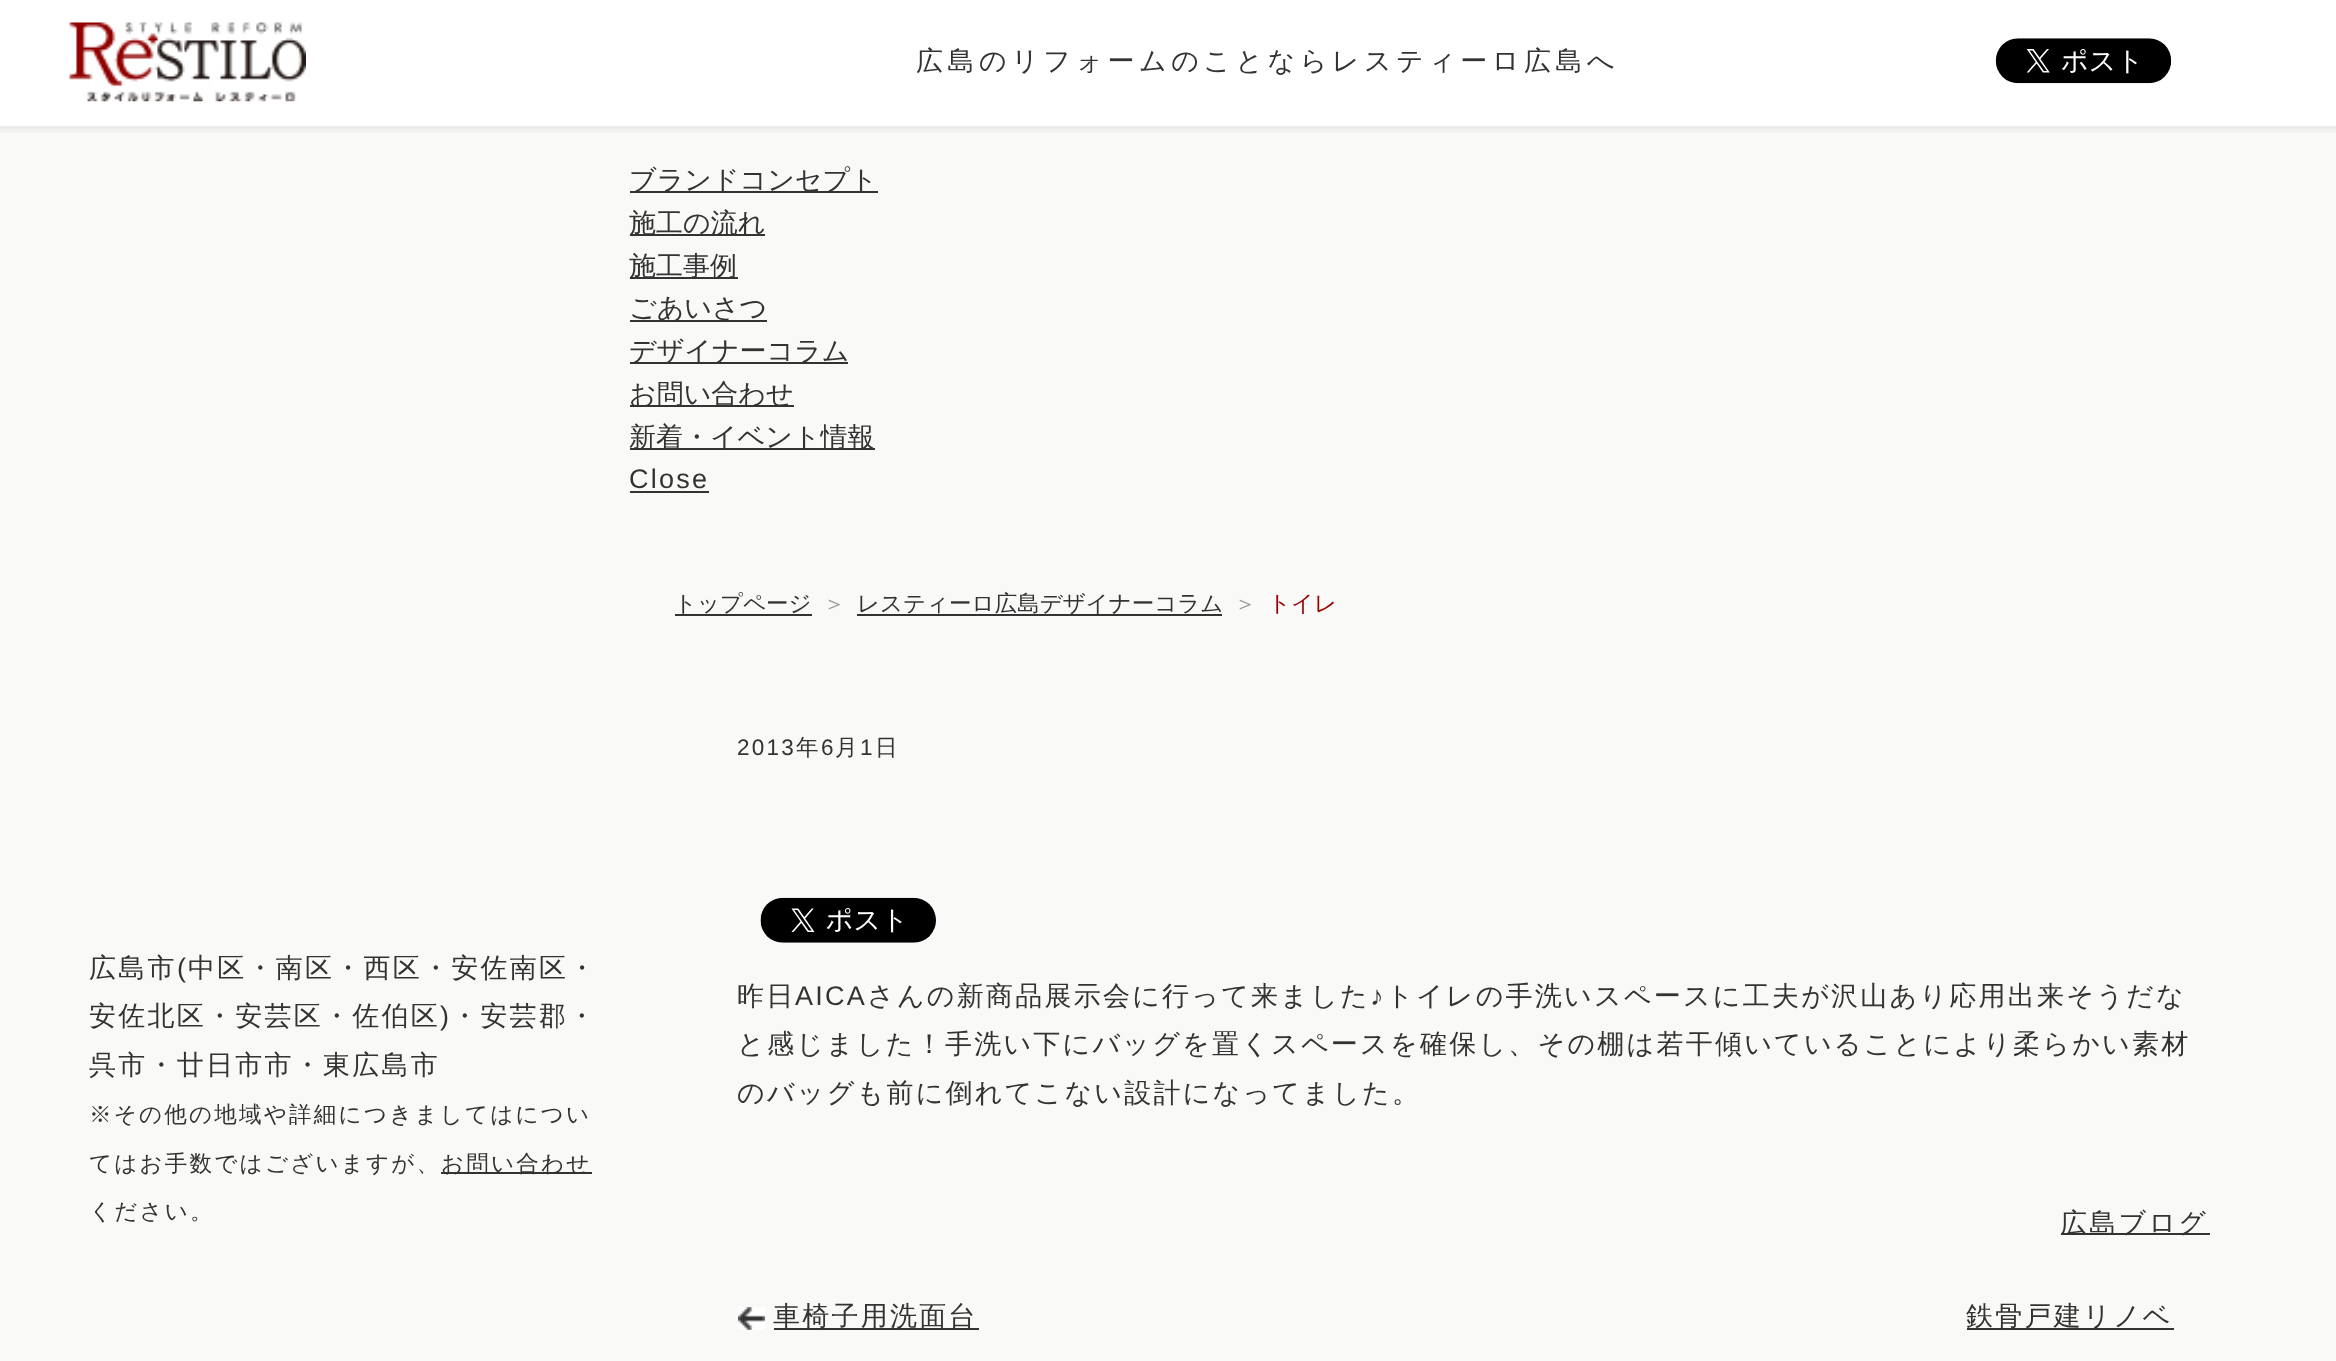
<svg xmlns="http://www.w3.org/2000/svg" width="2336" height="1361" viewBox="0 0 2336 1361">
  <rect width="100%" height="100%" fill="#f9f9f7"/>
  <image x="0" y="0" width="2336" height="133" href="img1.png"/>
  <image x="69" y="22" width="237" height="80" href="img2.png"/>
  <text x="916" y="70" font-family="WenQuanYi Zen Hei" font-size="27" font-weight="500" letter-spacing="4.5" fill="#333333">広島のリフォームのことならレスティーロ広島へ</text>
  <image x="1995" y="38" width="177" height="46" href="img3.png"/>
  <rect x="630" y="191" width="248" height="2" fill="#333333"/>
  <text x="629" y="189" font-family="WenQuanYi Zen Hei" font-size="27" font-weight="500" fill="#333333">ブランドコンセプト</text>
  <rect x="630" y="234" width="135" height="2" fill="#333333"/>
  <text x="629" y="232" font-family="WenQuanYi Zen Hei" font-size="27" font-weight="500" fill="#333333">施工の流れ</text>
  <rect x="630" y="277" width="108" height="2" fill="#333333"/>
  <text x="629" y="275" font-family="WenQuanYi Zen Hei" font-size="27" font-weight="500" fill="#333333">施工事例</text>
  <rect x="630" y="320" width="137" height="2" fill="#333333"/>
  <text x="629" y="317" font-family="WenQuanYi Zen Hei" font-size="27" font-weight="500" fill="#333333">ごあいさつ</text>
  <rect x="630" y="362" width="218" height="2" fill="#333333"/>
  <text x="629" y="360" font-family="WenQuanYi Zen Hei" font-size="27" font-weight="500" fill="#333333">デザイナーコラム</text>
  <rect x="630" y="405" width="164" height="2" fill="#333333"/>
  <text x="629" y="403" font-family="WenQuanYi Zen Hei" font-size="27" font-weight="500" fill="#333333">お問い合わせ</text>
  <rect x="630" y="448" width="245" height="2" fill="#333333"/>
  <text x="629" y="446" font-family="WenQuanYi Zen Hei" font-size="27" font-weight="500" fill="#333333">新着・イベント情報</text>
  <text x="629" y="488" font-family="Liberation Sans" font-size="27" letter-spacing="2.25" fill="#333333">Close</text>
  <rect x="630" y="491" width="79" height="2" fill="#333333"/>
  <text x="89" y="977" font-family="WenQuanYi Zen Hei" font-size="27" font-weight="500" letter-spacing="2.25" fill="#333333">広島市</text>
  <text x="177" y="977" font-family="Liberation Sans" font-size="27" letter-spacing="2.25" fill="#333333">(</text>
  <text x="188" y="977" font-family="WenQuanYi Zen Hei" font-size="27" font-weight="500" letter-spacing="2.25" fill="#333333">中区・南区・西区・安佐南区・</text>
  <text x="89" y="1025" font-family="WenQuanYi Zen Hei" font-size="27" font-weight="500" letter-spacing="2.25" fill="#333333">安佐北区・安芸区・佐伯区</text>
  <text x="440" y="1025" font-family="Liberation Sans" font-size="27" letter-spacing="2.25" fill="#333333">)</text>
  <text x="451" y="1025" font-family="WenQuanYi Zen Hei" font-size="27" font-weight="500" letter-spacing="2.25" fill="#333333">・安芸郡・</text>
  <text x="89" y="1074" font-family="WenQuanYi Zen Hei" font-size="27" font-weight="500" letter-spacing="2.25" fill="#333333">呉市・廿日市市・東広島市</text>
  <text x="89" y="1122" font-family="WenQuanYi Zen Hei" font-size="22.5" font-weight="500" letter-spacing="2.25" fill="#333333">※その他の地域や詳細につきましてはについ</text>
  <text x="89" y="1171" font-family="WenQuanYi Zen Hei" font-size="22.5" font-weight="500" letter-spacing="2.25" fill="#333333">てはお手数ではございますが、</text>
  <rect x="441" y="1172" width="151" height="2" fill="#333333"/>
  <text x="441" y="1171" font-family="WenQuanYi Zen Hei" font-size="22.5" font-weight="500" letter-spacing="2.25" fill="#333333">お問い合わせ</text>
  <text x="89" y="1219" font-family="WenQuanYi Zen Hei" font-size="22.5" font-weight="500" letter-spacing="2.25" fill="#333333">ください。</text>
  <text x="674" y="611" font-family="WenQuanYi Zen Hei" font-size="22.5" font-weight="500" fill="#333333">トップページ</text>
  <rect x="675" y="614" width="137" height="2" fill="#333333"/>
  <text x="823" y="611" font-family="WenQuanYi Zen Hei" font-size="22.5" font-weight="500" fill="#999999">＞</text>
  <rect x="857" y="614" width="365" height="2" fill="#333333"/>
  <text x="857" y="611" font-family="WenQuanYi Zen Hei" font-size="22.5" font-weight="500" fill="#333333">レスティーロ広島デザイナーコラム</text>
  <text x="1234" y="611" font-family="WenQuanYi Zen Hei" font-size="22.5" font-weight="500" fill="#999999">＞</text>
  <text x="1268" y="611" font-family="WenQuanYi Zen Hei" font-size="22.5" font-weight="500" fill="#990000">トイレ</text>
  <text x="737" y="755" font-family="Liberation Sans" font-size="22.5" letter-spacing="2.25" fill="#333333">2013</text>
  <text x="796" y="755" font-family="WenQuanYi Zen Hei" font-size="22.5" font-weight="500" letter-spacing="2.25" fill="#333333">年</text>
  <text x="821" y="755" font-family="Liberation Sans" font-size="22.5" letter-spacing="2.25" fill="#333333">6</text>
  <text x="835" y="755" font-family="WenQuanYi Zen Hei" font-size="22.5" font-weight="500" letter-spacing="2.25" fill="#333333">月</text>
  <text x="860" y="755" font-family="Liberation Sans" font-size="22.5" letter-spacing="2.25" fill="#333333">1</text>
  <text x="875" y="755" font-family="WenQuanYi Zen Hei" font-size="22.5" font-weight="500" letter-spacing="2.25" fill="#333333">日</text>
  <image x="760" y="897" width="176" height="46" href="img4.png"/>
  <text x="737" y="1005" font-family="WenQuanYi Zen Hei" font-size="27" font-weight="500" letter-spacing="2.25" fill="#333333">昨日</text>
  <text x="795" y="1005" font-family="Liberation Sans" font-size="27" letter-spacing="2.25" fill="#333333">AICA</text>
  <text x="867" y="1005" font-family="WenQuanYi Zen Hei" font-size="27" font-weight="500" letter-spacing="2.25" fill="#333333">さんの新商品展示会に行って来ました</text>
  <text x="1370" y="1005" font-family="Liberation Sans" font-size="27" letter-spacing="2.25" fill="#333333">♪</text>
  <text x="1386" y="1005" font-family="WenQuanYi Zen Hei" font-size="27" font-weight="500" letter-spacing="2.25" fill="#333333">トイレの手洗いスペースに工夫が沢山あり応用出来そうだな</text>
  <text x="737" y="1053" font-family="WenQuanYi Zen Hei" font-size="27" font-weight="500" letter-spacing="2.25" fill="#333333">と感じました！手洗い下にバッグを置くスペースを確保し、その棚は若干傾いていることにより柔らかい素材</text>
  <text x="737" y="1102" font-family="WenQuanYi Zen Hei" font-size="27" font-weight="500" letter-spacing="2.25" fill="#333333">のバッグも前に倒れてこない設計になってました。</text>
  <rect x="2061" y="1233" width="149" height="2" fill="#333333"/>
  <text x="2060" y="1232" font-family="WenQuanYi Zen Hei" font-size="27" font-weight="500" letter-spacing="2.25" fill="#333333">広島ブログ</text>
  <image x="738" y="1307" width="27" height="23" href="img5.png"/>
  <rect x="774" y="1328" width="205" height="2" fill="#333333"/>
  <text x="773" y="1325" font-family="WenQuanYi Zen Hei" font-size="27" font-weight="500" letter-spacing="2.25" fill="#333333">車椅子用洗面台</text>
  <rect x="1967" y="1328" width="207" height="2" fill="#333333"/>
  <text x="1966" y="1325" font-family="WenQuanYi Zen Hei" font-size="27" font-weight="500" letter-spacing="2.25" fill="#333333">鉄骨戸建リノベ</text>
</svg>
